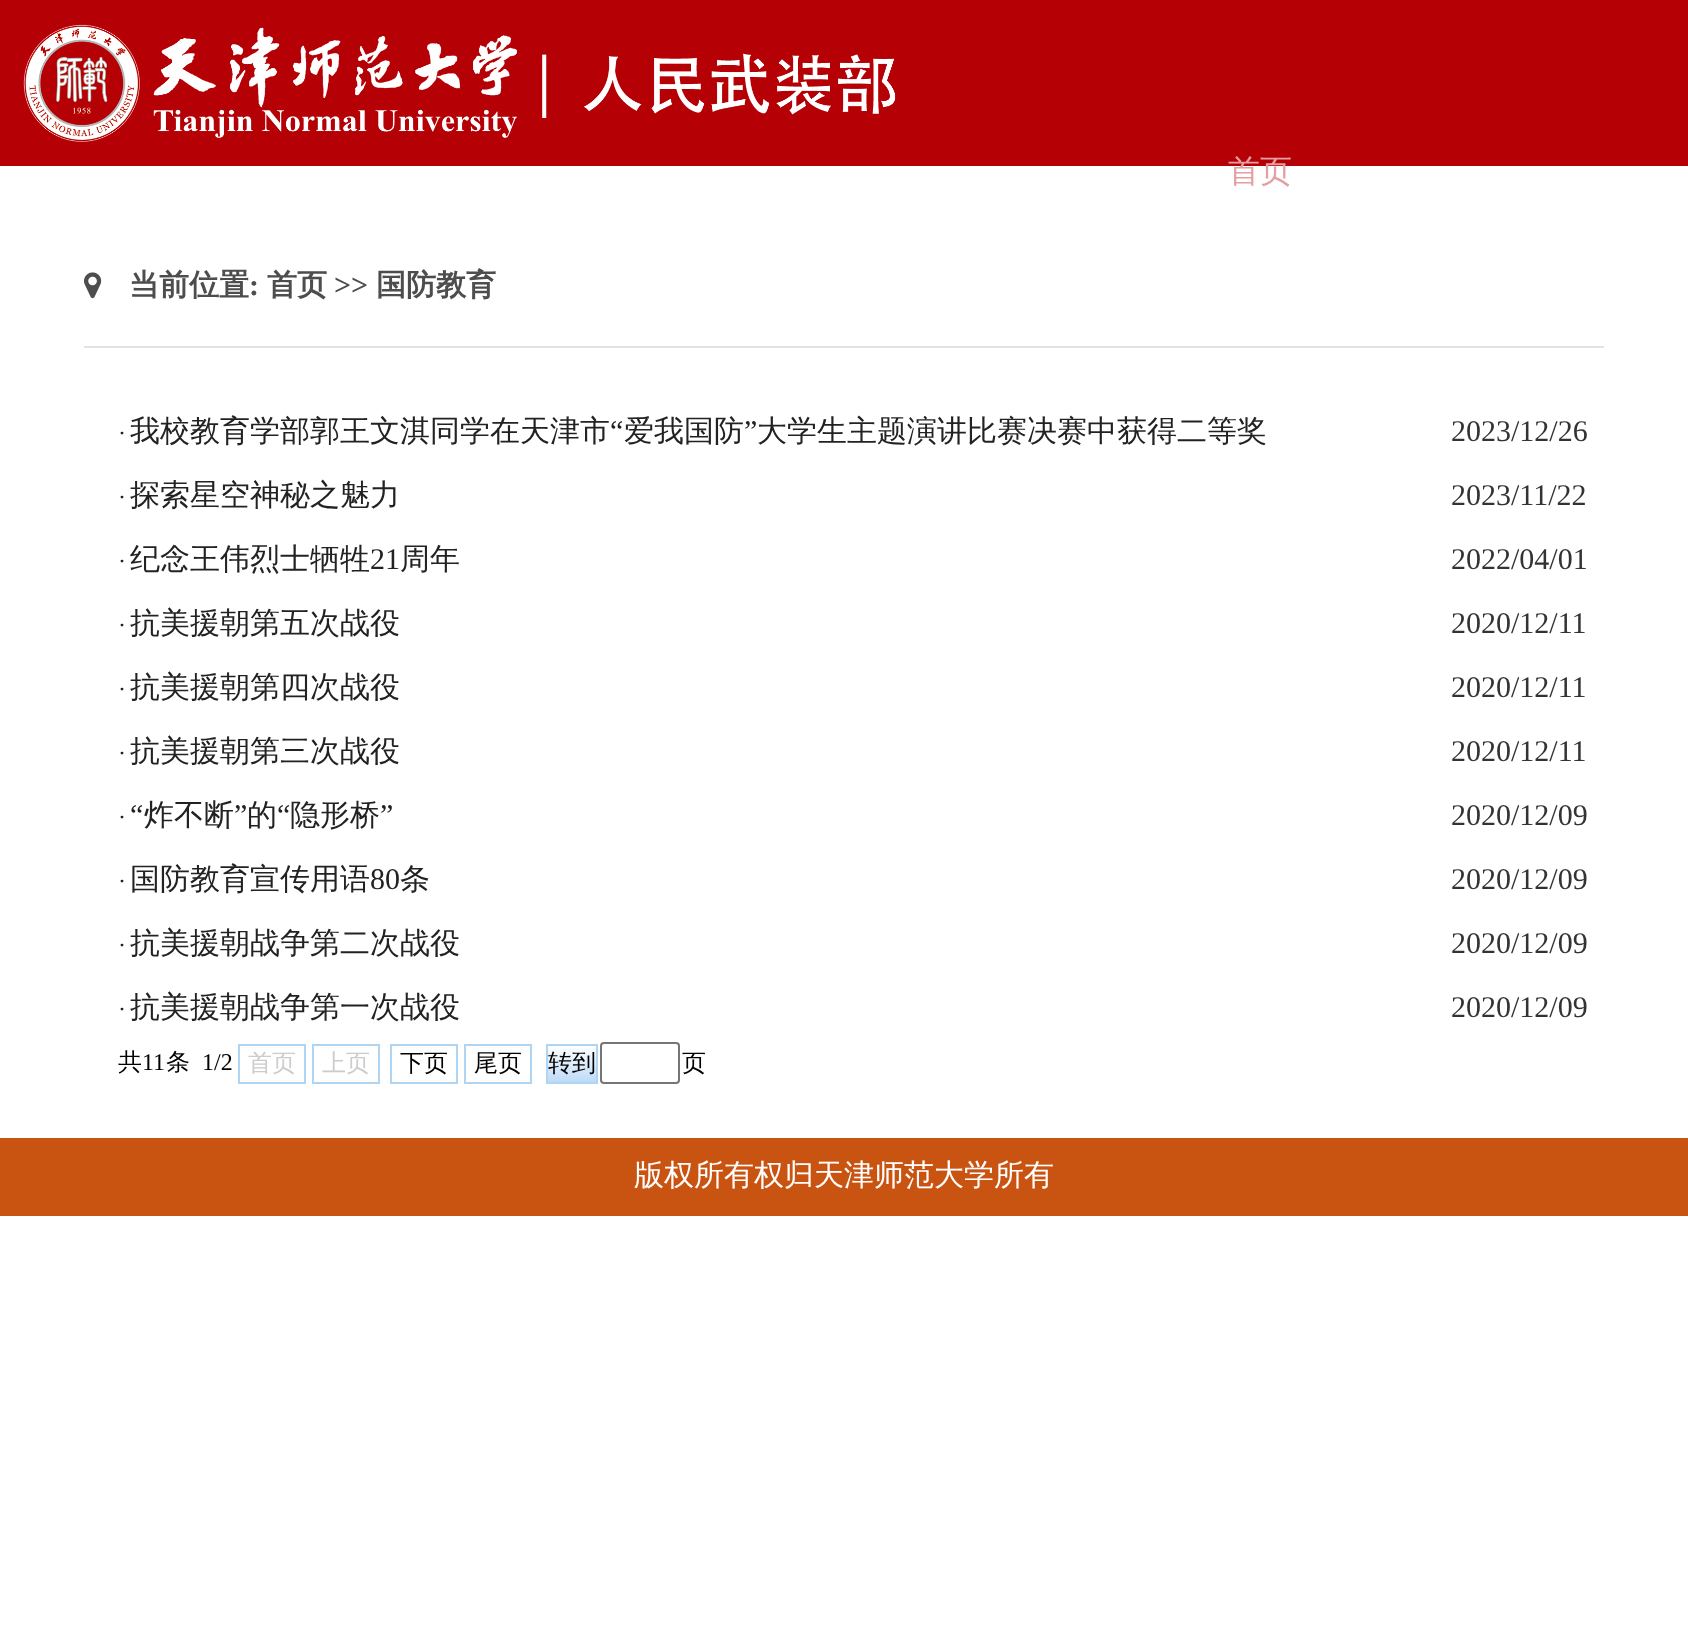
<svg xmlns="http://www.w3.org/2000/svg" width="1688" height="1647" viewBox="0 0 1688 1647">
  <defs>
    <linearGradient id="g1" gradientUnits="userSpaceOnUse" x1="548" y1="1046" x2="548" y2="1082"><stop offset="0" stop-color="#ffffff"/><stop offset="1" stop-color="#bddbf7"/></linearGradient>
  </defs>
  <rect width="100%" height="100%" fill="#ffffff"/>
  <rect x="0" y="0" width="1688" height="166" fill="#b50005"/>
  <image x="23" y="24" width="873" height="118" href="img1.png"/>
  <text x="1228" y="182" font-family="WenQuanYi Zen Hei" font-size="32" font-weight="500" fill="#e39fa1">首页</text>
  <rect x="84" y="346" width="1520" height="2" fill="#e2e2e2"/>
  <image x="84" y="272" width="18" height="27" href="img2.png"/>
  <text x="129" y="295" font-family="WenQuanYi Zen Hei" font-size="30" font-weight="bold" fill="#4d4d4d">当前位置</text>
  <text x="249" y="295" font-family="Liberation Serif" font-size="30" font-weight="bold" fill="#4d4d4d">:</text>
  <text x="267" y="295" font-family="WenQuanYi Zen Hei" font-size="30" font-weight="bold" fill="#4d4d4d">首页</text>
  <text x="334" y="295" font-family="Liberation Serif" font-size="30" font-weight="bold" fill="#4d4d4d">&gt;&gt;</text>
  <text x="376" y="295" font-family="WenQuanYi Zen Hei" font-size="30" font-weight="bold" fill="#4d4d4d">国防教育</text>
  <text x="118" y="441" font-family="Liberation Serif" font-size="24" fill="#222222">·</text>
  <text x="130" y="441" font-family="WenQuanYi Zen Hei" font-size="30" font-weight="500" fill="#222222">我校教育学部郭王文淇同学在天津市</text>
  <text x="610" y="441" font-family="Liberation Serif" font-size="30" fill="#222222">“</text>
  <text x="624" y="441" font-family="WenQuanYi Zen Hei" font-size="30" font-weight="500" fill="#222222">爱我国防</text>
  <text x="744" y="441" font-family="Liberation Serif" font-size="30" fill="#222222">”</text>
  <text x="757" y="441" font-family="WenQuanYi Zen Hei" font-size="30" font-weight="500" fill="#222222">大学生主题演讲比赛决赛中获得二等奖</text>
  <text x="1451" y="441" font-family="Liberation Serif" font-size="30" fill="#333333">2023/12/26</text>
  <text x="118" y="505" font-family="Liberation Serif" font-size="24" fill="#222222">·</text>
  <text x="130" y="505" font-family="WenQuanYi Zen Hei" font-size="30" font-weight="500" fill="#222222">探索星空神秘之魅力</text>
  <text x="1451" y="505" font-family="Liberation Serif" font-size="30" fill="#333333">2023/11/22</text>
  <text x="118" y="569" font-family="Liberation Serif" font-size="24" fill="#222222">·</text>
  <text x="130" y="569" font-family="WenQuanYi Zen Hei" font-size="30" font-weight="500" fill="#222222">纪念王伟烈士牺牲</text>
  <text x="370" y="569" font-family="Liberation Serif" font-size="30" fill="#222222">21</text>
  <text x="400" y="569" font-family="WenQuanYi Zen Hei" font-size="30" font-weight="500" fill="#222222">周年</text>
  <text x="1451" y="569" font-family="Liberation Serif" font-size="30" fill="#333333">2022/04/01</text>
  <text x="118" y="633" font-family="Liberation Serif" font-size="24" fill="#222222">·</text>
  <text x="130" y="633" font-family="WenQuanYi Zen Hei" font-size="30" font-weight="500" fill="#222222">抗美援朝第五次战役</text>
  <text x="1451" y="633" font-family="Liberation Serif" font-size="30" fill="#333333">2020/12/11</text>
  <text x="118" y="697" font-family="Liberation Serif" font-size="24" fill="#222222">·</text>
  <text x="130" y="697" font-family="WenQuanYi Zen Hei" font-size="30" font-weight="500" fill="#222222">抗美援朝第四次战役</text>
  <text x="1451" y="697" font-family="Liberation Serif" font-size="30" fill="#333333">2020/12/11</text>
  <text x="118" y="761" font-family="Liberation Serif" font-size="24" fill="#222222">·</text>
  <text x="130" y="761" font-family="WenQuanYi Zen Hei" font-size="30" font-weight="500" fill="#222222">抗美援朝第三次战役</text>
  <text x="1451" y="761" font-family="Liberation Serif" font-size="30" fill="#333333">2020/12/11</text>
  <text x="118" y="825" font-family="Liberation Serif" font-size="24" fill="#222222">·</text>
  <text x="130" y="825" font-family="Liberation Serif" font-size="30" fill="#222222">“</text>
  <text x="144" y="825" font-family="WenQuanYi Zen Hei" font-size="30" font-weight="500" fill="#222222">炸不断</text>
  <text x="234" y="825" font-family="Liberation Serif" font-size="30" fill="#222222">”</text>
  <text x="247" y="825" font-family="WenQuanYi Zen Hei" font-size="30" font-weight="500" fill="#222222">的</text>
  <text x="277" y="825" font-family="Liberation Serif" font-size="30" fill="#222222">“</text>
  <text x="290" y="825" font-family="WenQuanYi Zen Hei" font-size="30" font-weight="500" fill="#222222">隐形桥</text>
  <text x="380" y="825" font-family="Liberation Serif" font-size="30" fill="#222222">”</text>
  <text x="1451" y="825" font-family="Liberation Serif" font-size="30" fill="#333333">2020/12/09</text>
  <text x="118" y="889" font-family="Liberation Serif" font-size="24" fill="#222222">·</text>
  <text x="130" y="889" font-family="WenQuanYi Zen Hei" font-size="30" font-weight="500" fill="#222222">国防教育宣传用语</text>
  <text x="370" y="889" font-family="Liberation Serif" font-size="30" fill="#222222">80</text>
  <text x="400" y="889" font-family="WenQuanYi Zen Hei" font-size="30" font-weight="500" fill="#222222">条</text>
  <text x="1451" y="889" font-family="Liberation Serif" font-size="30" fill="#333333">2020/12/09</text>
  <text x="118" y="953" font-family="Liberation Serif" font-size="24" fill="#222222">·</text>
  <text x="130" y="953" font-family="WenQuanYi Zen Hei" font-size="30" font-weight="500" fill="#222222">抗美援朝战争第二次战役</text>
  <text x="1451" y="953" font-family="Liberation Serif" font-size="30" fill="#333333">2020/12/09</text>
  <text x="118" y="1017" font-family="Liberation Serif" font-size="24" fill="#222222">·</text>
  <text x="130" y="1017" font-family="WenQuanYi Zen Hei" font-size="30" font-weight="500" fill="#222222">抗美援朝战争第一次战役</text>
  <text x="1451" y="1017" font-family="Liberation Serif" font-size="30" fill="#333333">2020/12/09</text>
  <text x="118" y="1070" font-family="WenQuanYi Zen Hei" font-size="24" font-weight="500" fill="#000000">共</text>
  <text x="142" y="1070" font-family="Liberation Serif" font-size="24" fill="#000000">11</text>
  <text x="166" y="1070" font-family="WenQuanYi Zen Hei" font-size="24" font-weight="500" fill="#000000">条</text>
  <text x="202" y="1070" font-family="Liberation Serif" font-size="24" fill="#000000">1/2</text>
  <rect x="239" y="1045" width="66" height="38" fill="none" stroke="#afd5f5" stroke-width="2"/>
  <text x="248" y="1071" font-family="WenQuanYi Zen Hei" font-size="24" font-weight="500" fill="#cccccc">首页</text>
  <rect x="313" y="1045" width="66" height="38" fill="none" stroke="#afd5f5" stroke-width="2"/>
  <text x="322" y="1071" font-family="WenQuanYi Zen Hei" font-size="24" font-weight="500" fill="#cccccc">上页</text>
  <rect x="391" y="1045" width="66" height="38" fill="none" stroke="#afd5f5" stroke-width="2"/>
  <text x="400" y="1071" font-family="WenQuanYi Zen Hei" font-size="24" font-weight="500" fill="#000000">下页</text>
  <rect x="465" y="1045" width="66" height="38" fill="none" stroke="#afd5f5" stroke-width="2"/>
  <text x="474" y="1071" font-family="WenQuanYi Zen Hei" font-size="24" font-weight="500" fill="#000000">尾页</text>
  <rect x="548" y="1047" width="48" height="35" fill="url(#g1)"/>
  <rect x="547" y="1045" width="50" height="38" fill="none" stroke="#afd5f5" stroke-width="2"/>
  <text x="548" y="1071" font-family="WenQuanYi Zen Hei" font-size="24" font-weight="500" fill="#000000">转到</text>
  <rect x="601" y="1043" width="78" height="40" rx="3" fill="none" stroke="#767676" stroke-width="2"/>
  <text x="682" y="1071" font-family="WenQuanYi Zen Hei" font-size="24" font-weight="500" fill="#000000">页</text>
  <rect x="0" y="1138" width="1688" height="78" fill="#c95412"/>
  <text x="634" y="1185" font-family="WenQuanYi Zen Hei" font-size="30" font-weight="500" fill="#ffffff">版权所有权归天津师范大学所有</text>
</svg>
